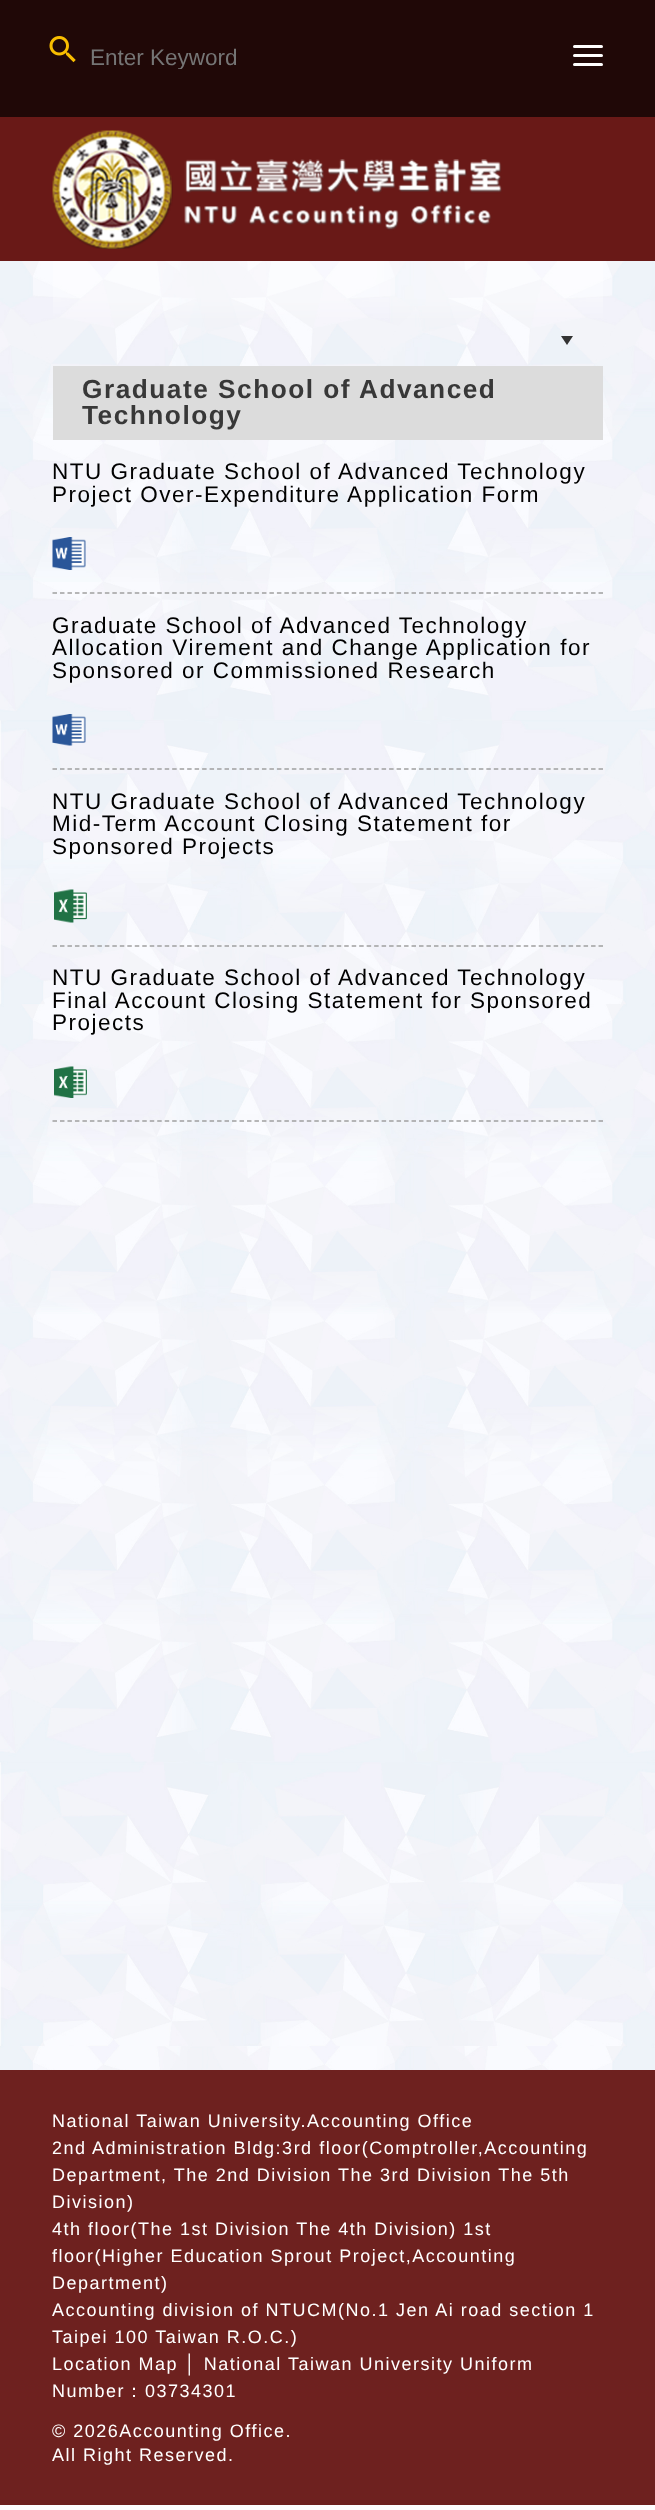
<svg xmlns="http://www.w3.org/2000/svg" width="655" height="2510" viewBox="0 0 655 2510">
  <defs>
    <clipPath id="clip1"><rect x="90" y="44" width="431" height="25"/></clipPath>
  </defs>
  <rect width="100%" height="100%" fill="#ffffff"/>
  <rect x="0" y="117" width="655" height="144" fill="#691917"/>
  <rect x="0" y="0" width="655" height="117" fill="#200807"/>
  <rect x="573" y="45" width="30" height="3" rx="1.5" fill="#ffffff"/>
  <rect x="573" y="54" width="30" height="3" rx="1.5" fill="#ffffff"/>
  <rect x="573" y="63" width="30" height="3" rx="1.5" fill="#ffffff"/>
  <image x="52" y="130" width="450" height="119" href="img1.png"/>
  <image x="49" y="36" width="27" height="27" href="img2.png"/>
  <g clip-path="url(#clip1)">
    <text x="90" y="65" font-family="Liberation Sans" font-size="22.5" fill="#757575">Enter Keyword</text>
  </g>
  <image x="0" y="261" width="655" height="1809" href="img3.png"/>
  <path d="M561 336H573L567 345Z" fill="#333333"/>
  <rect x="53" y="366" width="550" height="74" fill="#dcdcdc"/>
  <text x="82" y="398" font-family="Liberation Sans" font-size="26.25" font-weight="bold" letter-spacing="1.5" fill="#383838">Graduate School of Advanced</text>
  <text x="82" y="424" font-family="Liberation Sans" font-size="26.25" font-weight="bold" letter-spacing="1.5" fill="#383838">Technology</text>
  <path d="M52.5 593H603" fill="none" stroke="#a0a0a0" stroke-width="1.5" stroke-dasharray="4.5 2.98"/>
  <text x="52" y="479" font-family="Liberation Sans" font-size="22.5" letter-spacing="1.5" fill="#000000">NTU Graduate School of Advanced Technology</text>
  <text x="52" y="502" font-family="Liberation Sans" font-size="22.5" letter-spacing="1.5" fill="#000000">Project Over-Expenditure Application Form</text>
  <image x="52" y="537" width="34" height="33" href="img4.png"/>
  <path d="M52.5 769H603" fill="none" stroke="#a0a0a0" stroke-width="1.5" stroke-dasharray="4.5 2.98"/>
  <text x="52" y="633" font-family="Liberation Sans" font-size="22.5" letter-spacing="1.5" fill="#000000">Graduate School of Advanced Technology</text>
  <text x="52" y="655" font-family="Liberation Sans" font-size="22.5" letter-spacing="1.5" fill="#000000">Allocation Virement and Change Application for</text>
  <text x="52" y="678" font-family="Liberation Sans" font-size="22.5" letter-spacing="1.5" fill="#000000">Sponsored or Commissioned Research</text>
  <image x="52" y="714" width="34" height="32" href="img5.png"/>
  <path d="M52.5 946H603" fill="none" stroke="#a0a0a0" stroke-width="1.5" stroke-dasharray="4.5 2.98"/>
  <text x="52" y="809" font-family="Liberation Sans" font-size="22.5" letter-spacing="1.5" fill="#000000">NTU Graduate School of Advanced Technology</text>
  <text x="52" y="831" font-family="Liberation Sans" font-size="22.5" letter-spacing="1.5" fill="#000000">Mid-Term Account Closing Statement for</text>
  <text x="52" y="854" font-family="Liberation Sans" font-size="22.5" letter-spacing="1.5" fill="#000000">Sponsored Projects</text>
  <image x="54" y="889" width="33" height="34" href="img6.png"/>
  <path d="M52.5 1121H603" fill="none" stroke="#a0a0a0" stroke-width="1.5" stroke-dasharray="4.5 2.98"/>
  <text x="52" y="985" font-family="Liberation Sans" font-size="22.5" letter-spacing="1.5" fill="#000000">NTU Graduate School of Advanced Technology</text>
  <text x="52" y="1008" font-family="Liberation Sans" font-size="22.5" letter-spacing="1.5" fill="#000000">Final Account Closing Statement for Sponsored</text>
  <text x="52" y="1030" font-family="Liberation Sans" font-size="22.5" letter-spacing="1.5" fill="#000000">Projects</text>
  <image x="54" y="1066" width="33" height="32" href="img7.png"/>
  <rect x="0" y="2070" width="655" height="435" fill="#6e211f"/>
  <text x="52" y="2127" font-family="Liberation Sans" font-size="18" letter-spacing="1.5" fill="#ffffff">National Taiwan University.Accounting Office</text>
  <text x="52" y="2154" font-family="Liberation Sans" font-size="18" letter-spacing="1.5" fill="#ffffff">2nd Administration Bldg:3rd floor(Comptroller,Accounting</text>
  <text x="52" y="2181" font-family="Liberation Sans" font-size="18" letter-spacing="1.5" fill="#ffffff">Department, The 2nd Division The 3rd Division The 5th</text>
  <text x="52" y="2208" font-family="Liberation Sans" font-size="18" letter-spacing="1.5" fill="#ffffff">Division)</text>
  <text x="52" y="2235" font-family="Liberation Sans" font-size="18" letter-spacing="1.5" fill="#ffffff">4th floor(The 1st Division The 4th Division) 1st</text>
  <text x="52" y="2262" font-family="Liberation Sans" font-size="18" letter-spacing="1.5" fill="#ffffff">floor(Higher Education Sprout Project,Accounting</text>
  <text x="52" y="2289" font-family="Liberation Sans" font-size="18" letter-spacing="1.5" fill="#ffffff">Department)</text>
  <text x="52" y="2316" font-family="Liberation Sans" font-size="18" letter-spacing="1.5" fill="#ffffff">Accounting division of NTUCM(No.1 Jen Ai road section 1</text>
  <text x="52" y="2343" font-family="Liberation Sans" font-size="18" letter-spacing="1.5" fill="#ffffff">Taipei 100 Taiwan R.O.C.)</text>
  <text x="52" y="2370" font-family="Liberation Sans" font-size="18" letter-spacing="1.5" fill="#ffffff">Location Map │ National Taiwan University Uniform</text>
  <text x="52" y="2397" font-family="Liberation Sans" font-size="18" letter-spacing="1.5" fill="#ffffff">Number</text>
  <text x="125" y="2397" font-family="WenQuanYi Zen Hei" font-size="18" font-weight="500" letter-spacing="1.5" fill="#ffffff">：</text>
  <text x="145" y="2397" font-family="Liberation Sans" font-size="18" letter-spacing="1.5" fill="#ffffff">03734301</text>
  <text x="52" y="2437" font-family="Liberation Sans" font-size="18" letter-spacing="1.5" fill="#ffffff">© 2026Accounting Office.</text>
  <text x="52" y="2461" font-family="Liberation Sans" font-size="18" letter-spacing="1.5" fill="#ffffff">All Right Reserved.</text>
</svg>
